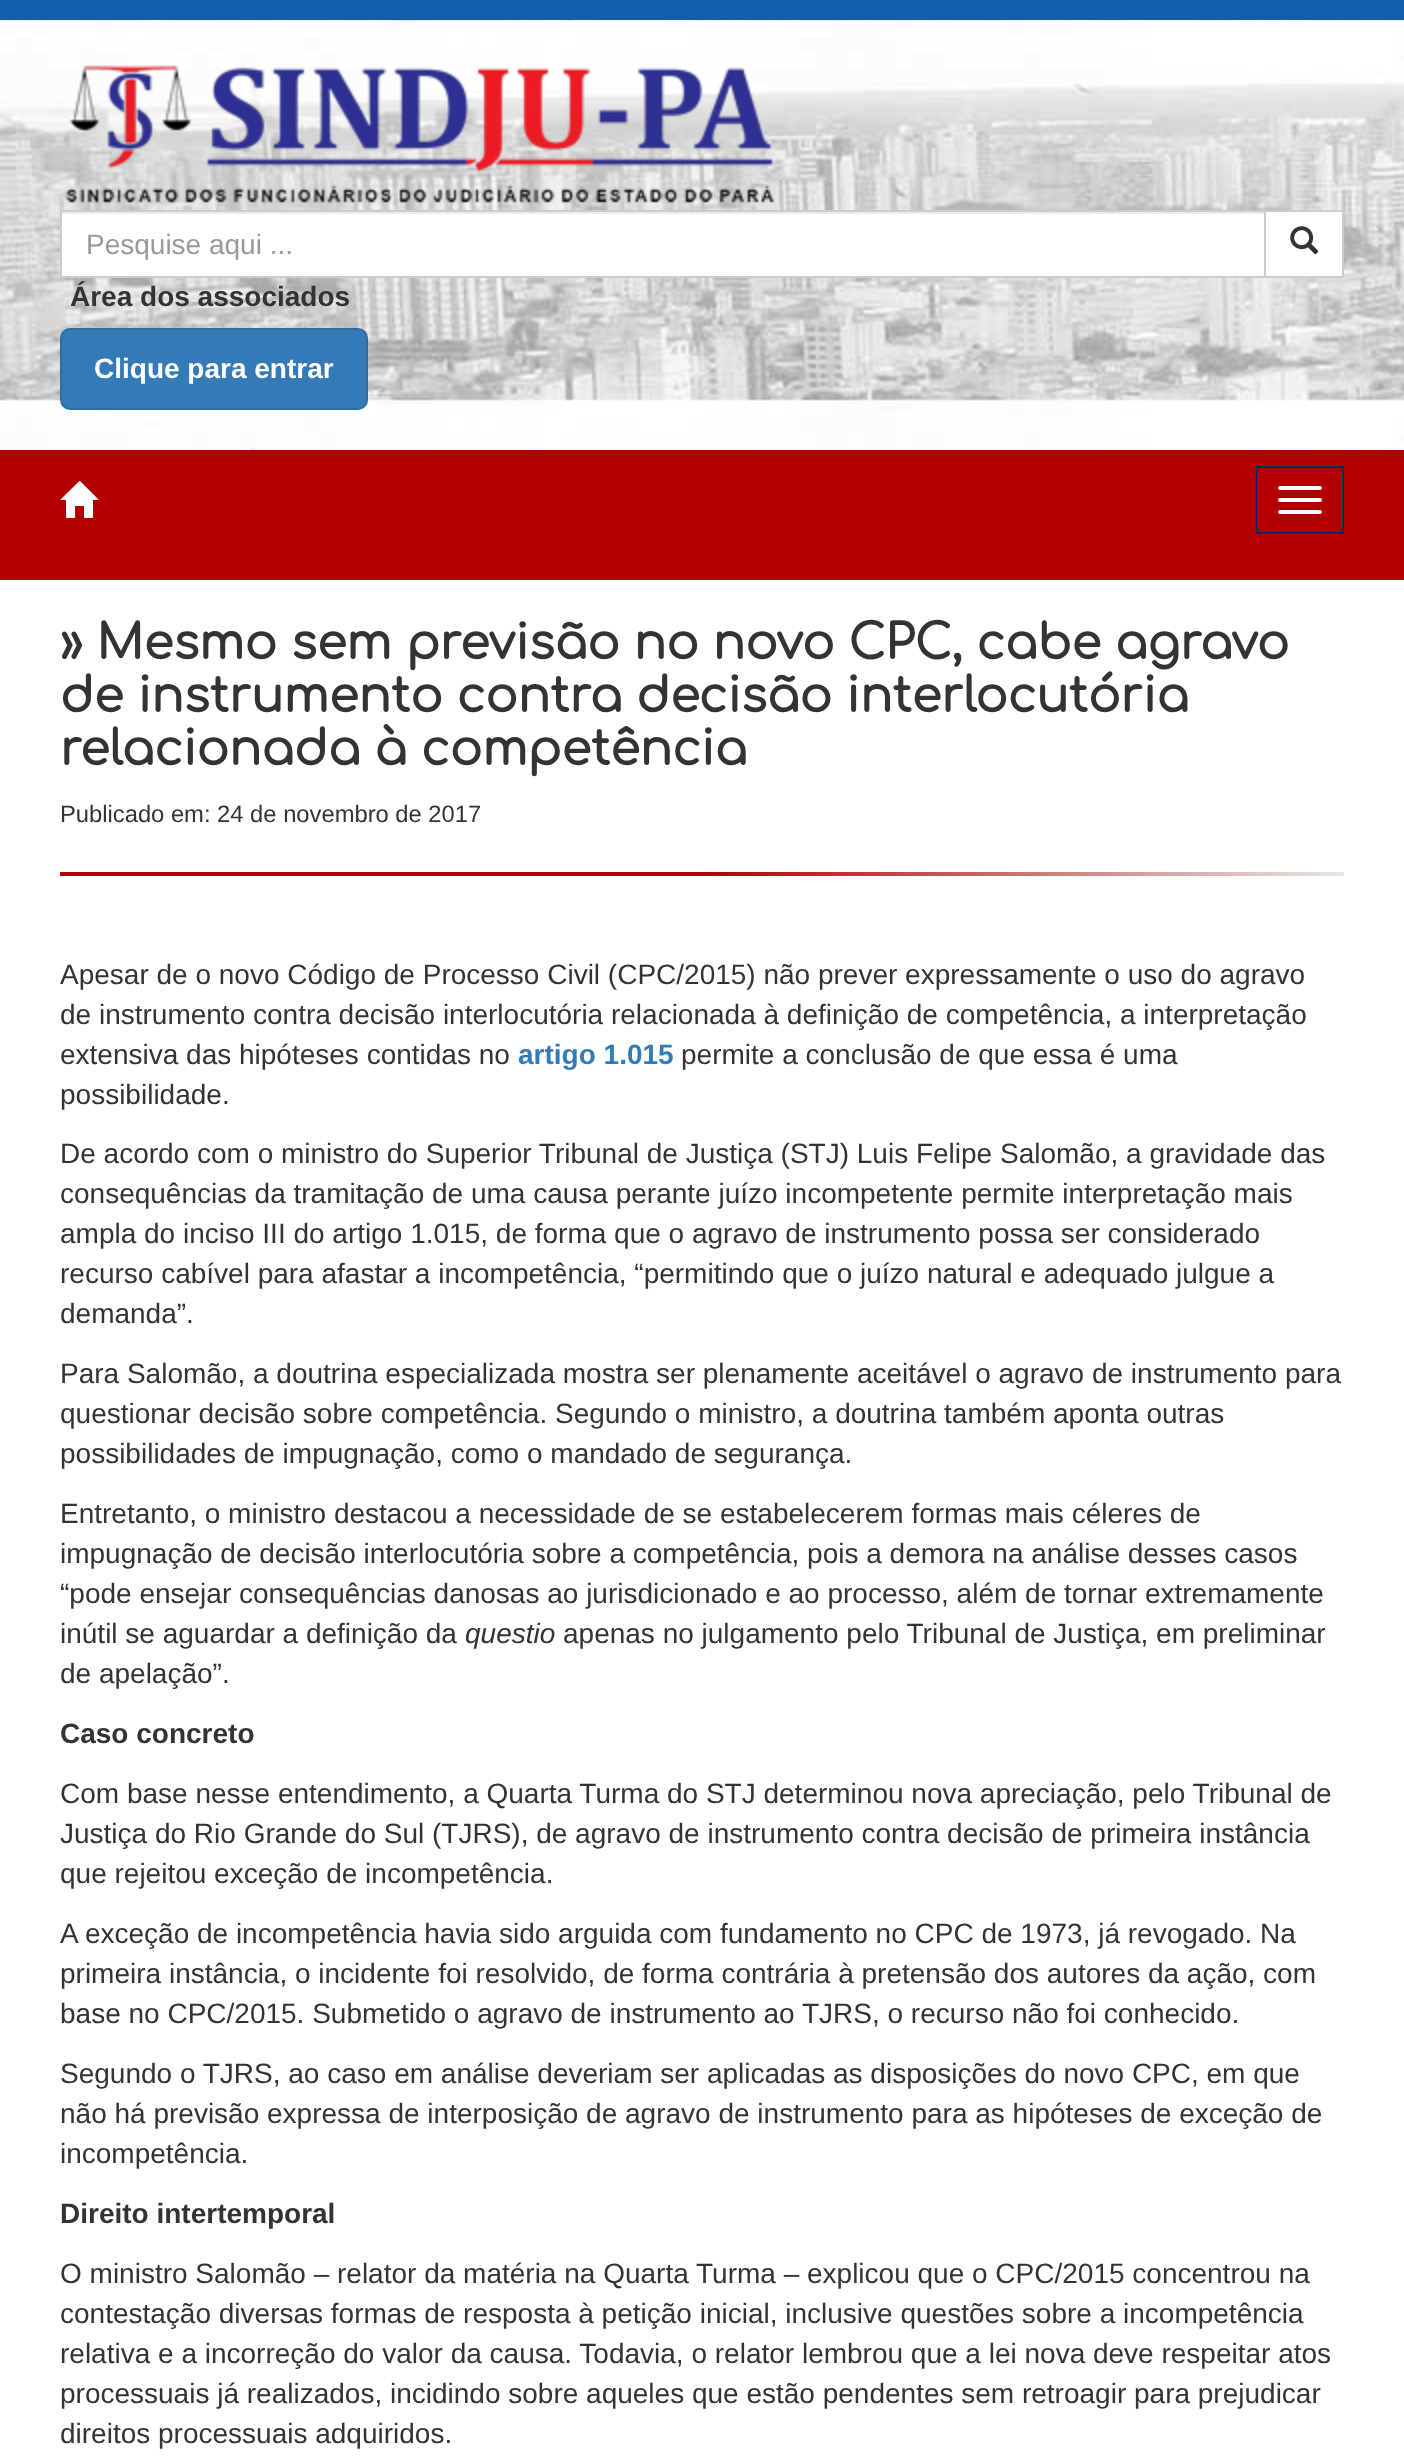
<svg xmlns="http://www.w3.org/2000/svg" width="1404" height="2459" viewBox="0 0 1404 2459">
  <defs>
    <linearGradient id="g1" gradientUnits="userSpaceOnUse" x1="60" y1="874" x2="1344" y2="874"><stop offset="0" stop-color="#b20000"/><stop offset="0.5" stop-color="#b20000"/><stop offset="1" stop-color="#e6e6e6"/></linearGradient>
  </defs>
  <rect width="100%" height="100%" fill="#ffffff"/>
  <rect x="0" y="0" width="1404" height="20" fill="#125eab"/>
  <image x="0" y="20" width="1404" height="430" href="img1.png"/>
  <image x="65" y="65" width="710" height="138" href="img2.png"/>
  <rect x="62" y="214" width="1202" height="62" fill="#ffffff"/>
  <rect x="62" y="212" width="1202" height="2" fill="#ececec"/>
  <rect x="61" y="211" width="1204" height="66" fill="none" stroke="#cccccc" stroke-width="2"/>
  <text x="86" y="254" font-family="Liberation Sans" font-size="28" fill="#999999">Pesquise aqui ...</text>
  <rect x="1265" y="211" width="78" height="66" fill="#ffffff" stroke="#cccccc" stroke-width="2"/>
  <image x="1290" y="226" width="29" height="29" href="img3.png"/>
  <text x="70" y="306" font-family="Liberation Sans" font-size="28" font-weight="bold" fill="#333333">Área dos associados</text>
  <rect x="61" y="329" width="306" height="80" rx="9" fill="#337ab7" stroke="#2e6da4" stroke-width="2"/>
  <text x="94" y="378" font-family="Liberation Sans" font-size="28" font-weight="bold" fill="#ffffff">Clique para entrar</text>
  <rect x="0" y="450" width="1404" height="130" fill="#b20000"/>
  <image x="60" y="481" width="39" height="37" href="img4.png"/>
  <rect x="1257" y="467" width="86" height="66" fill="none" stroke="#002e5a" stroke-width="2"/>
  <rect x="1278" y="486" width="44" height="4" rx="2" fill="#ffffff"/>
  <rect x="1278" y="498" width="44" height="4" rx="2" fill="#ffffff"/>
  <rect x="1278" y="510" width="44" height="4" rx="2" fill="#ffffff"/>
  <text x="60" y="659" font-family="Comfortaa" font-size="48" font-weight="bold" fill="#333333">» Mesmo sem previsão no novo CPC, cabe agravo</text>
  <text x="60" y="712" font-family="Comfortaa" font-size="48" font-weight="bold" fill="#333333">de instrumento contra decisão interlocutória</text>
  <text x="60" y="765" font-family="Comfortaa" font-size="48" font-weight="bold" fill="#333333">relacionada à competência</text>
  <text x="60" y="822" font-family="Liberation Sans" font-size="23.75" fill="#333333">Publicado em: 24 de novembro de 2017</text>
  <rect x="60" y="872" width="1284" height="4" fill="url(#g1)"/>
  <text x="60" y="984" font-family="Liberation Sans" font-size="28" fill="#333333">Apesar de o novo Código de Processo Civil (CPC/2015) não prever expressamente o uso do agravo</text>
  <text x="60" y="1024" font-family="Liberation Sans" font-size="28" fill="#333333">de instrumento contra decisão interlocutória relacionada à definição de competência, a interpretação</text>
  <text x="60" y="1064" font-family="Liberation Sans" font-size="28" fill="#333333">extensiva das hipóteses contidas no</text>
  <text x="518" y="1064" font-family="Liberation Sans" font-size="28" font-weight="bold" fill="#337ab7">artigo 1.015</text>
  <text x="681" y="1064" font-family="Liberation Sans" font-size="28" fill="#333333">permite a conclusão de que essa é uma</text>
  <text x="60" y="1104" font-family="Liberation Sans" font-size="28" fill="#333333">possibilidade.</text>
  <text x="60" y="1163" font-family="Liberation Sans" font-size="28" fill="#333333">De acordo com o ministro do Superior Tribunal de Justiça (STJ) Luis Felipe Salomão, a gravidade das</text>
  <text x="60" y="1203" font-family="Liberation Sans" font-size="28" fill="#333333">consequências da tramitação de uma causa perante juízo incompetente permite interpretação mais</text>
  <text x="60" y="1243" font-family="Liberation Sans" font-size="28" fill="#333333">ampla do inciso III do artigo 1.015, de forma que o agravo de instrumento possa ser considerado</text>
  <text x="60" y="1283" font-family="Liberation Sans" font-size="28" fill="#333333">recurso cabível para afastar a incompetência, “permitindo que o juízo natural e adequado julgue a</text>
  <text x="60" y="1323" font-family="Liberation Sans" font-size="28" fill="#333333">demanda”.</text>
  <text x="60" y="1383" font-family="Liberation Sans" font-size="28" fill="#333333">Para Salomão, a doutrina especializada mostra ser plenamente aceitável o agravo de instrumento para</text>
  <text x="60" y="1423" font-family="Liberation Sans" font-size="28" fill="#333333">questionar decisão sobre competência. Segundo o ministro, a doutrina também aponta outras</text>
  <text x="60" y="1463" font-family="Liberation Sans" font-size="28" fill="#333333">possibilidades de impugnação, como o mandado de segurança.</text>
  <text x="60" y="1523" font-family="Liberation Sans" font-size="28" fill="#333333">Entretanto, o ministro destacou a necessidade de se estabelecerem formas mais céleres de</text>
  <text x="60" y="1563" font-family="Liberation Sans" font-size="28" fill="#333333">impugnação de decisão interlocutória sobre a competência, pois a demora na análise desses casos</text>
  <text x="60" y="1603" font-family="Liberation Sans" font-size="28" fill="#333333">“pode ensejar consequências danosas ao jurisdicionado e ao processo, além de tornar extremamente</text>
  <text x="60" y="1643" font-family="Liberation Sans" font-size="28" fill="#333333">inútil se aguardar a definição da</text>
  <text x="465" y="1643" font-family="Liberation Sans" font-size="28" font-style="italic" fill="#333333">questio</text>
  <text x="563" y="1643" font-family="Liberation Sans" font-size="28" fill="#333333">apenas no julgamento pelo Tribunal de Justiça, em preliminar</text>
  <text x="60" y="1683" font-family="Liberation Sans" font-size="28" fill="#333333">de apelação”.</text>
  <text x="60" y="1743" font-family="Liberation Sans" font-size="28" font-weight="bold" fill="#333333">Caso concreto</text>
  <text x="60" y="1803" font-family="Liberation Sans" font-size="28" fill="#333333">Com base nesse entendimento, a Quarta Turma do STJ determinou nova apreciação, pelo Tribunal de</text>
  <text x="60" y="1843" font-family="Liberation Sans" font-size="28" fill="#333333">Justiça do Rio Grande do Sul (TJRS), de agravo de instrumento contra decisão de primeira instância</text>
  <text x="60" y="1883" font-family="Liberation Sans" font-size="28" fill="#333333">que rejeitou exceção de incompetência.</text>
  <text x="60" y="1943" font-family="Liberation Sans" font-size="28" fill="#333333">A exceção de incompetência havia sido arguida com fundamento no CPC de 1973, já revogado. Na</text>
  <text x="60" y="1983" font-family="Liberation Sans" font-size="28" fill="#333333">primeira instância, o incidente foi resolvido, de forma contrária à pretensão dos autores da ação, com</text>
  <text x="60" y="2023" font-family="Liberation Sans" font-size="28" fill="#333333">base no CPC/2015. Submetido o agravo de instrumento ao TJRS, o recurso não foi conhecido.</text>
  <text x="60" y="2083" font-family="Liberation Sans" font-size="28" fill="#333333">Segundo o TJRS, ao caso em análise deveriam ser aplicadas as disposições do novo CPC, em que</text>
  <text x="60" y="2123" font-family="Liberation Sans" font-size="28" fill="#333333">não há previsão expressa de interposição de agravo de instrumento para as hipóteses de exceção de</text>
  <text x="60" y="2163" font-family="Liberation Sans" font-size="28" fill="#333333">incompetência.</text>
  <text x="60" y="2223" font-family="Liberation Sans" font-size="28" font-weight="bold" fill="#333333">Direito intertemporal</text>
  <text x="60" y="2283" font-family="Liberation Sans" font-size="28" fill="#333333">O ministro Salomão – relator da matéria na Quarta Turma – explicou que o CPC/2015 concentrou na</text>
  <text x="60" y="2323" font-family="Liberation Sans" font-size="28" fill="#333333">contestação diversas formas de resposta à petição inicial, inclusive questões sobre a incompetência</text>
  <text x="60" y="2363" font-family="Liberation Sans" font-size="28" fill="#333333">relativa e a incorreção do valor da causa. Todavia, o relator lembrou que a lei nova deve respeitar atos</text>
  <text x="60" y="2403" font-family="Liberation Sans" font-size="28" fill="#333333">processuais já realizados, incidindo sobre aqueles que estão pendentes sem retroagir para prejudicar</text>
  <text x="60" y="2443" font-family="Liberation Sans" font-size="28" fill="#333333">direitos processuais adquiridos.</text>
</svg>
